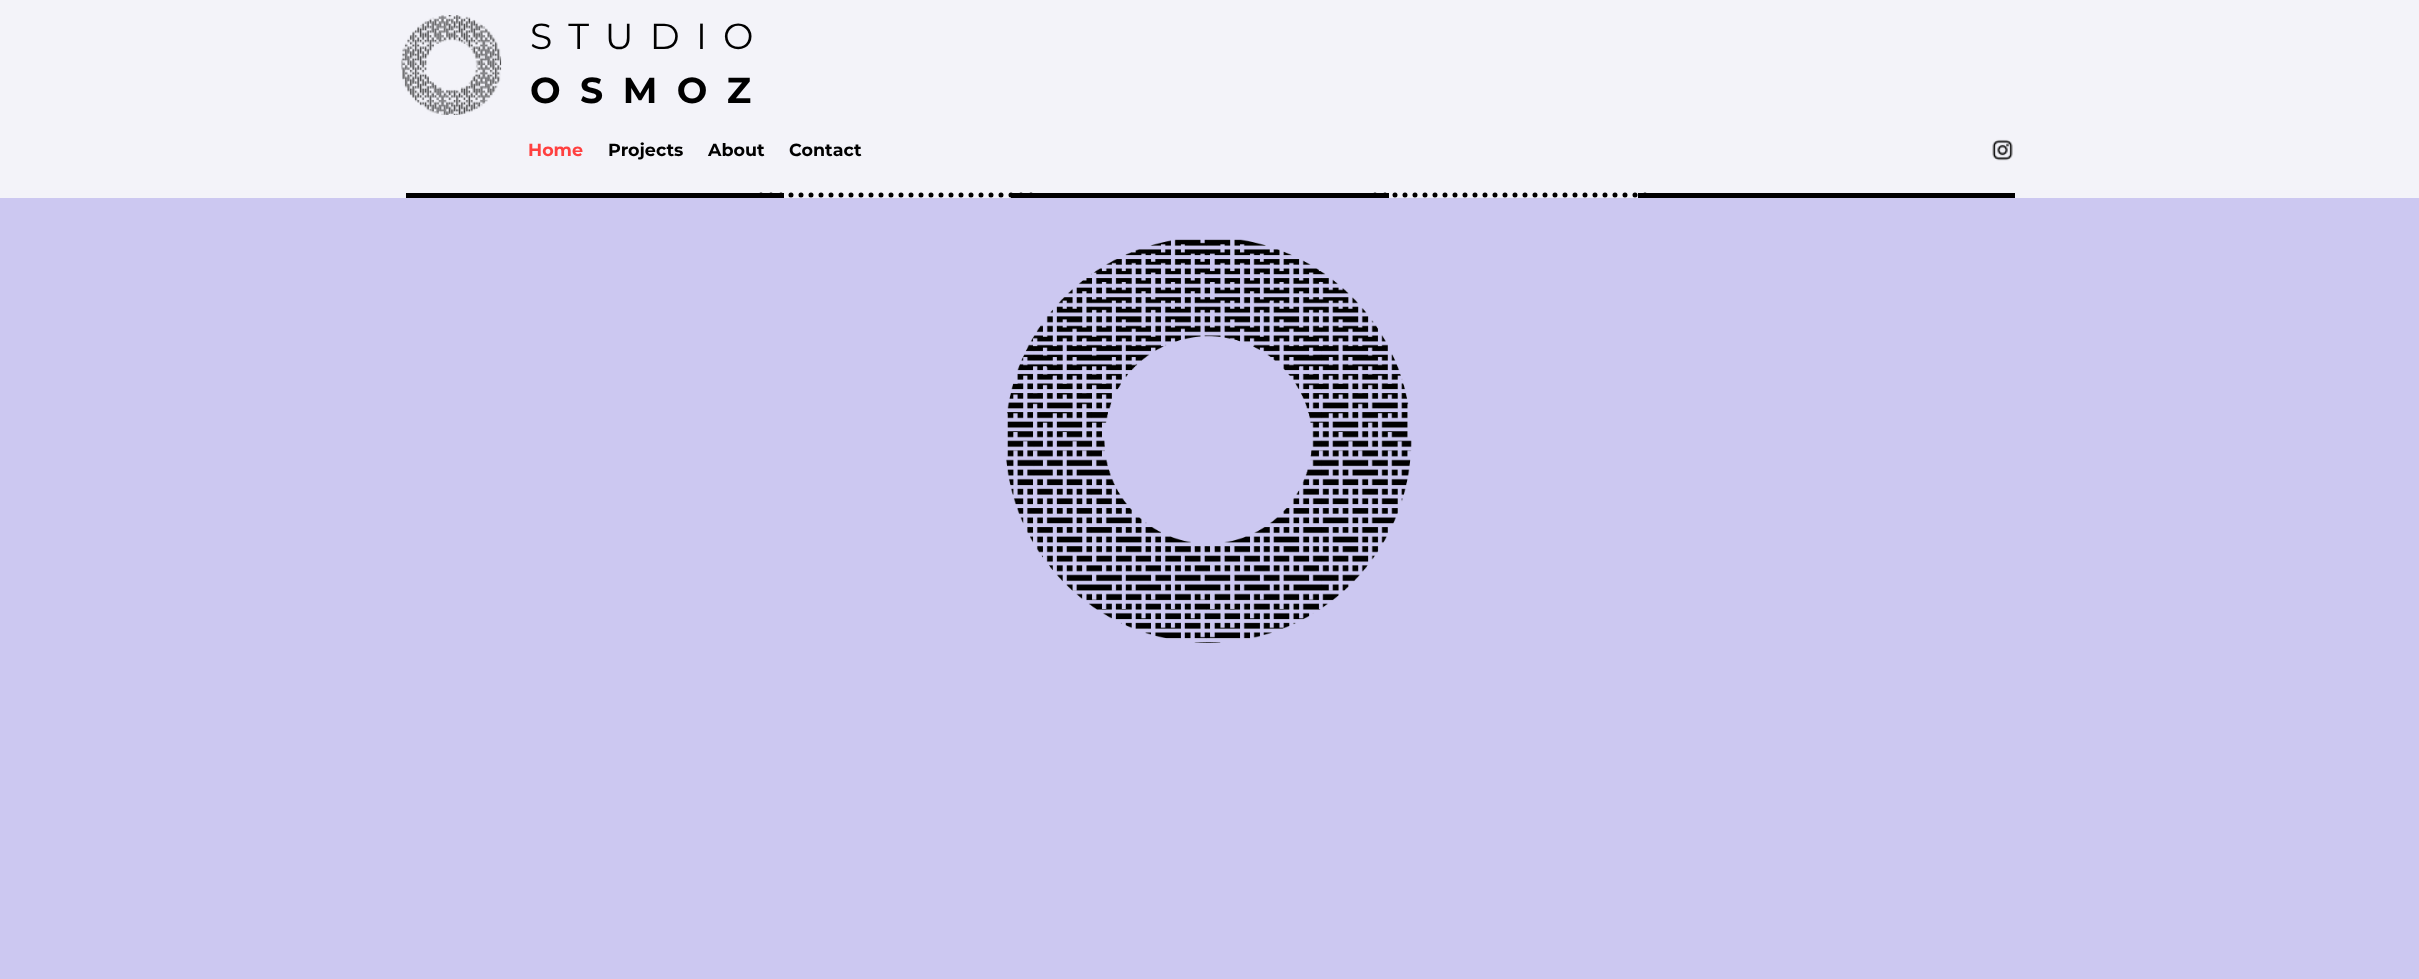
<svg xmlns="http://www.w3.org/2000/svg" width="2419" height="979" viewBox="0 0 2419 979">
  <rect width="100%" height="100%" fill="#ccc8f1"/>
  <rect x="0" y="0" width="2419" height="198" fill="#f3f3f9"/>
  <image x="401" y="15" width="101" height="100" href="img1.png"/>
  <text x="530" y="49" font-family="Montserrat" font-size="36.25" letter-spacing="16.25" fill="#000000">STUDIO</text>
  <text x="530" y="103" font-family="Montserrat" font-size="36.25" font-weight="bold" letter-spacing="19.5" fill="#000000">OSMOZ</text>
  <text x="528" y="156" font-family="Montserrat" font-size="17.5" font-weight="bold" fill="#ff4040">Home</text>
  <text x="608" y="156" font-family="Montserrat" font-size="17.5" font-weight="bold" fill="#000000">Projects</text>
  <text x="708" y="156" font-family="Montserrat" font-size="17.5" font-weight="bold" fill="#000000">About</text>
  <text x="789" y="156" font-family="Montserrat" font-size="17.5" font-weight="bold" fill="#000000">Contact</text>
  <image x="1992" y="139" width="21" height="22" href="img2.png"/>
  <rect x="406" y="193" width="378" height="5" fill="#000000"/>
  <rect x="1011" y="193" width="378" height="5" fill="#000000"/>
  <path d="M761 195H1035" fill="none" stroke="#000000" stroke-width="5" stroke-linecap="round" stroke-dasharray="0 10"/>
  <rect x="1638" y="193" width="377" height="5" fill="#000000"/>
  <path d="M1375 195H1649" fill="none" stroke="#000000" stroke-width="5" stroke-linecap="round" stroke-dasharray="0 10"/>
  <image x="1006" y="239" width="406" height="404" href="img3.png"/>
</svg>
